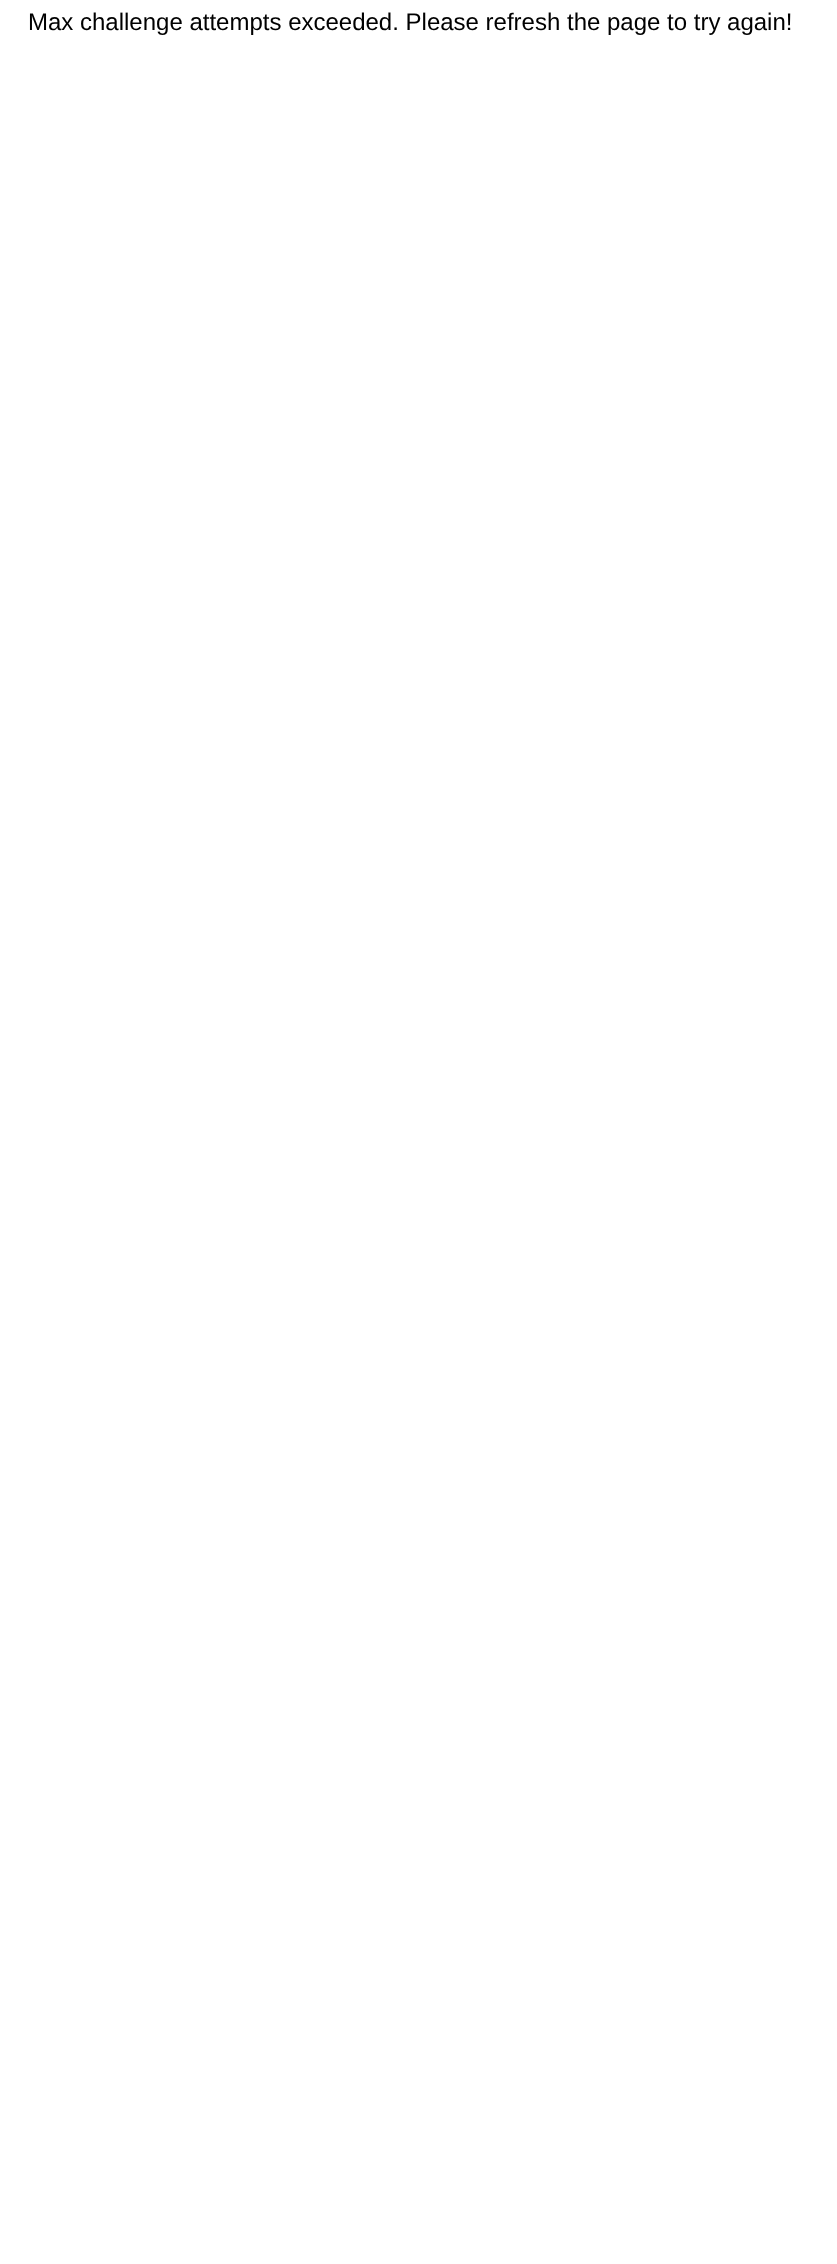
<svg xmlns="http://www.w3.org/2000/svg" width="837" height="2264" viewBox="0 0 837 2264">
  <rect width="100%" height="100%" fill="#ffffff"/>
  <text x="28" y="30" font-family="Liberation Sans" font-size="24" fill="#000000">Max challenge attempts exceeded. Please refresh the page to try again!</text>
</svg>
